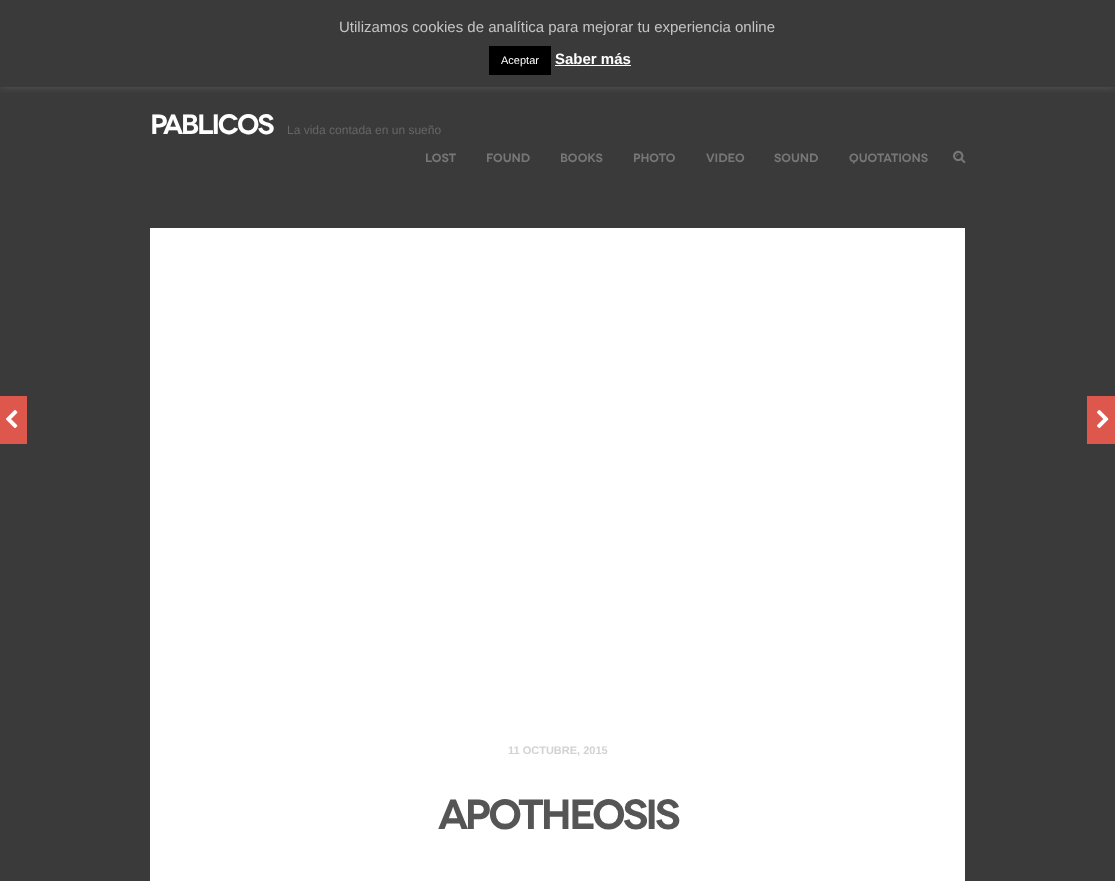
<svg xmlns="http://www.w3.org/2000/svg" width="1115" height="881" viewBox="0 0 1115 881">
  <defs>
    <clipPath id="clip1"><rect x="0" y="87" width="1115" height="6"/></clipPath>
    <filter id="blur1" x="-50%" y="-200%" width="200%" height="500%"><feGaussianBlur stdDeviation="5"/></filter>
  </defs>
  <rect width="100%" height="100%" fill="#3a3a3a"/>
  <g clip-path="url(#clip1)">
    <rect x="0" y="-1" width="1115" height="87" fill="#acabab" fill-opacity="0.3" filter="url(#blur1)"/>
  </g>
  <text x="339" y="32" font-family="Liberation Sans" font-size="15" fill="#c4c4c4">Utilizamos cookies de analítica para mejorar tu experiencia online</text>
  <rect x="489" y="46" width="62" height="29" fill="#000000"/>
  <text x="501" y="64" font-family="Liberation Sans" font-size="11" fill="#ffffff">Aceptar</text>
  <text x="555" y="64" font-family="Liberation Sans" font-size="15" font-weight="bold" fill="#ffffff">Saber más</text>
  <rect x="555" y="65" width="76" height="1" fill="#ffffff"/>
  <text x="150" y="134" font-family="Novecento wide" font-size="28" font-weight="600" letter-spacing="-2" fill="#ffffff">Pablicos</text>
  <text x="287" y="134" font-family="Liberation Sans" font-size="12" fill="#666666">La vida contada en un sueño</text>
  <text x="425" y="162" font-family="Novecento wide" font-size="12" font-weight="600" fill="#777777">LOST</text>
  <text x="486" y="162" font-family="Novecento wide" font-size="12" font-weight="600" fill="#777777">FOUND</text>
  <text x="560" y="162" font-family="Novecento wide" font-size="12" font-weight="600" fill="#777777">BOOKS</text>
  <text x="633" y="162" font-family="Novecento wide" font-size="12" font-weight="600" fill="#777777">PHOTO</text>
  <text x="706" y="162" font-family="Novecento wide" font-size="12" font-weight="600" fill="#777777">VIDEO</text>
  <text x="774" y="162" font-family="Novecento wide" font-size="12" font-weight="600" fill="#777777">SOUND</text>
  <text x="849" y="162" font-family="Novecento wide" font-size="12" font-weight="600" fill="#777777">QUOTATIONS</text>
  <image x="953" y="150" width="13" height="14" href="img1.png"/>
  <rect x="0" y="396" width="27" height="48" fill="#dd574c"/>
  <image x="6" y="410" width="12" height="18" href="img2.png"/>
  <rect x="1087" y="396" width="28" height="48" fill="#dd574c"/>
  <image x="1097" y="410" width="12" height="18" href="img3.png"/>
  <rect x="150" y="228" width="815" height="653" fill="#ffffff"/>
  <text x="508" y="754" font-family="Liberation Sans" font-size="11" font-weight="bold" fill="#d2d2d2">11 OCTUBRE, 2015</text>
  <text x="438" y="829" font-family="Novecento wide" font-size="42" font-weight="600" letter-spacing="-3" fill="#555555">Apotheosis</text>
</svg>
